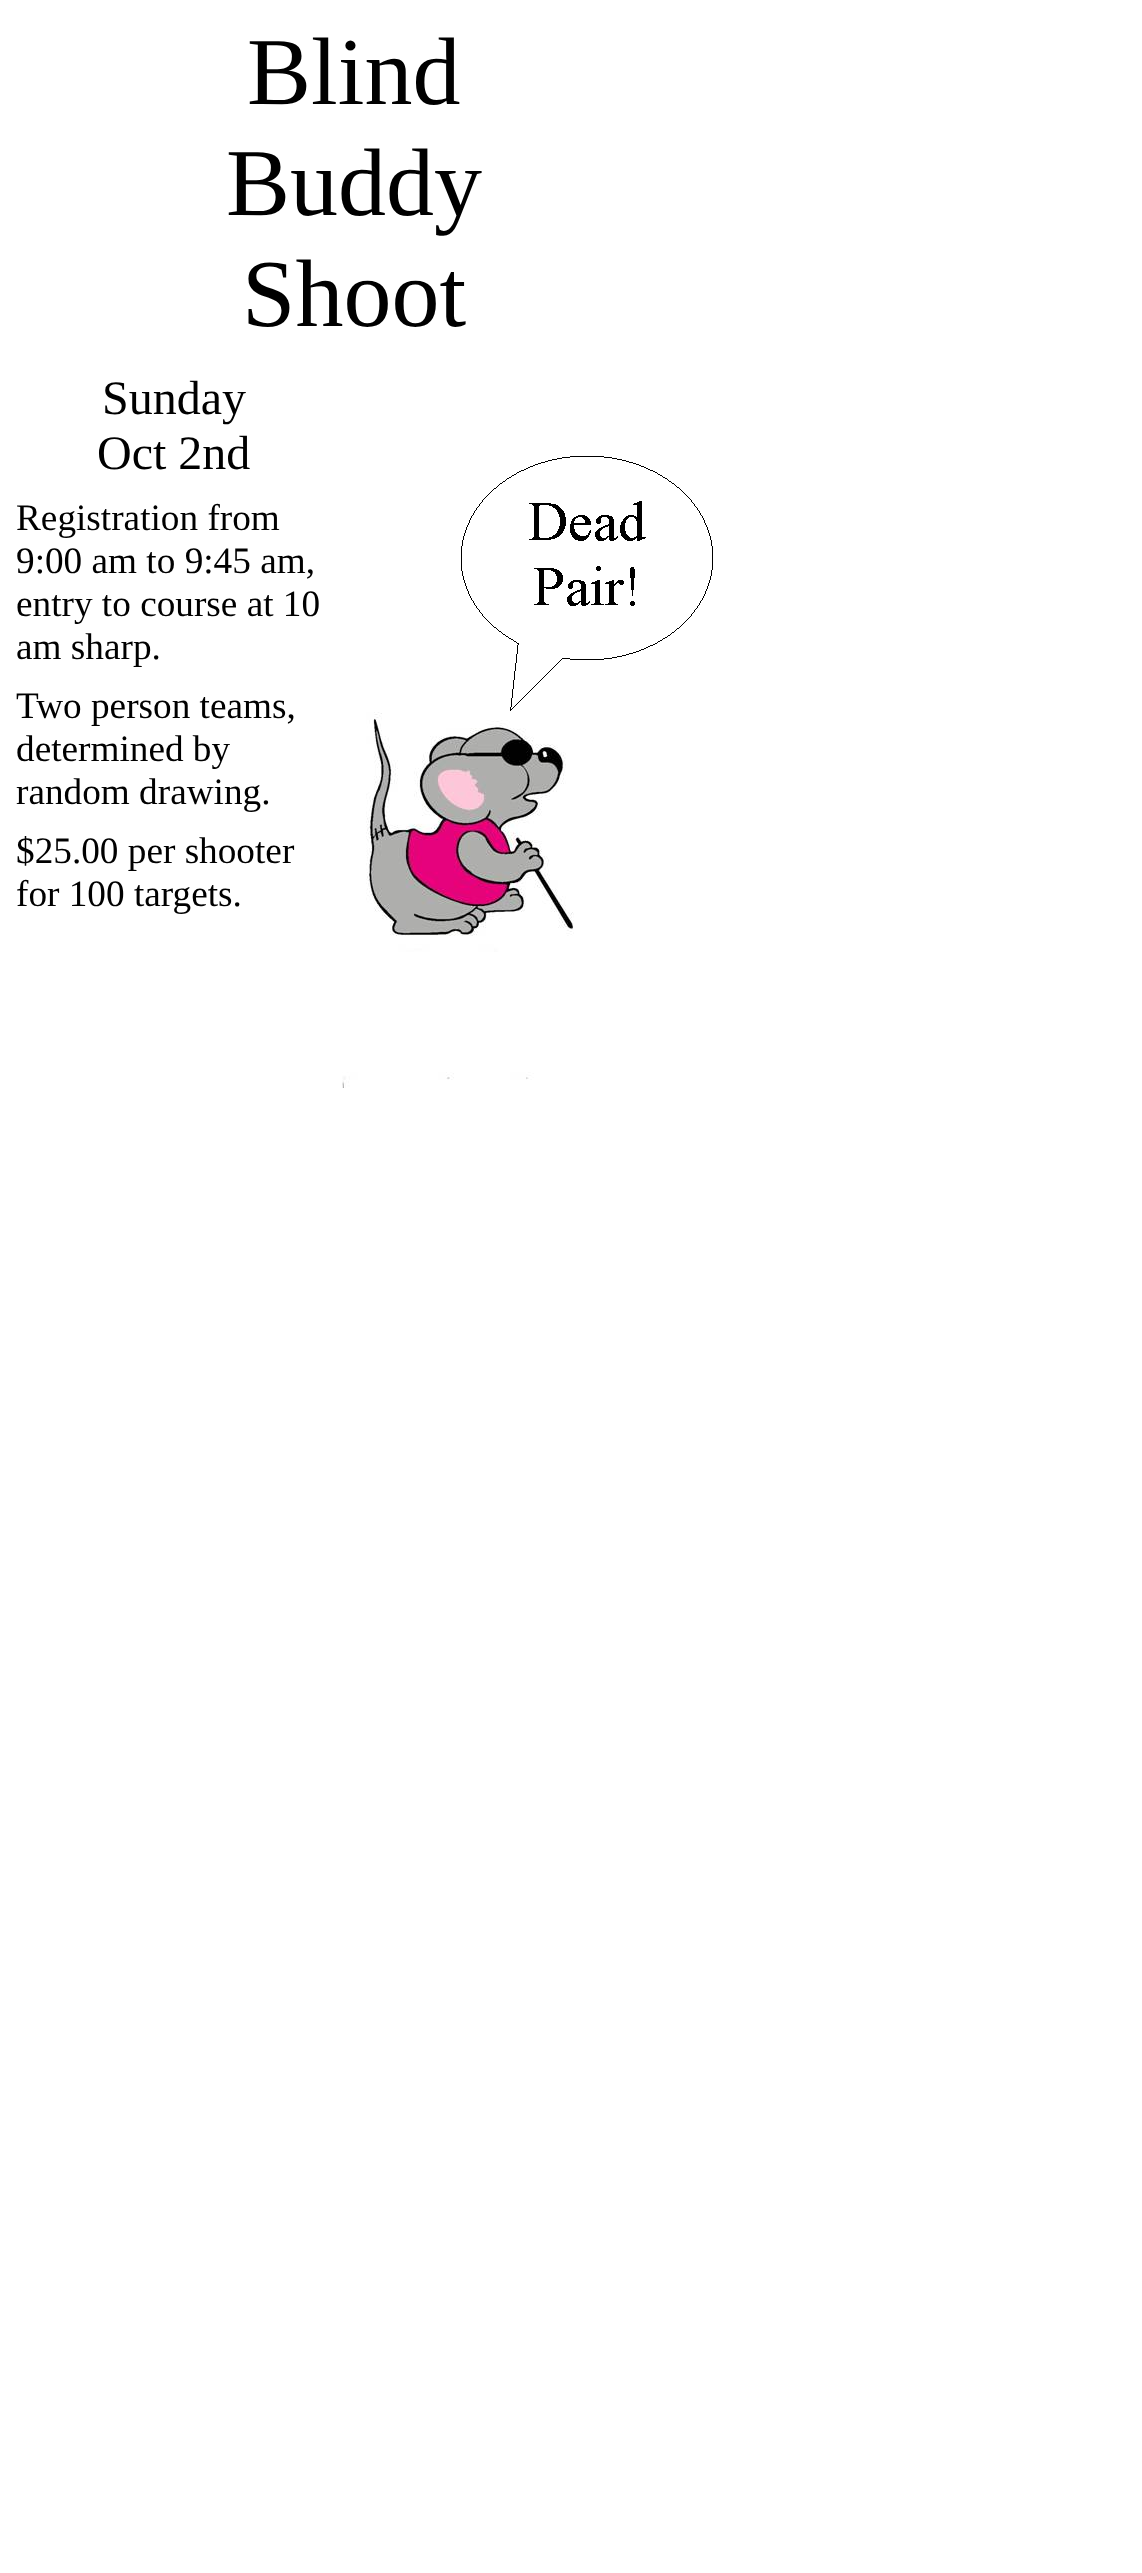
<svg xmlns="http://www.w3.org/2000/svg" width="1142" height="2573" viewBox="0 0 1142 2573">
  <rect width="100%" height="100%" fill="#ffffff"/>
  <text x="247" y="104" font-family="Liberation Serif" font-size="96" fill="#000000">Blind</text>
  <text x="226" y="215" font-family="Liberation Serif" font-size="96" fill="#000000">Buddy</text>
  <text x="242" y="326" font-family="Liberation Serif" font-size="96" fill="#000000">Shoot</text>
  <text x="102" y="414" font-family="Liberation Serif" font-size="48" fill="#000000">Sunday</text>
  <text x="97" y="469" font-family="Liberation Serif" font-size="48" fill="#000000">Oct 2nd</text>
  <text x="16" y="530" font-family="Liberation Serif" font-size="37.25" fill="#000000">Registration from</text>
  <text x="16" y="573" font-family="Liberation Serif" font-size="37.25" fill="#000000">9:00 am to 9:45 am,</text>
  <text x="16" y="616" font-family="Liberation Serif" font-size="37.25" fill="#000000">entry to course at 10</text>
  <text x="16" y="659" font-family="Liberation Serif" font-size="37.25" fill="#000000">am sharp.</text>
  <text x="16" y="718" font-family="Liberation Serif" font-size="37.25" fill="#000000">Two person teams,</text>
  <text x="16" y="761" font-family="Liberation Serif" font-size="37.25" fill="#000000">determined by</text>
  <text x="16" y="804" font-family="Liberation Serif" font-size="37.25" fill="#000000">random drawing.</text>
  <text x="16" y="863" font-family="Liberation Serif" font-size="37.25" fill="#000000">$25.00 per shooter</text>
  <text x="16" y="906" font-family="Liberation Serif" font-size="37.25" fill="#000000">for 100 targets.</text>
  <image x="461" y="456" width="252" height="255" href="img1.png"/>
  <image x="342" y="712" width="232" height="376" href="img2.png"/>
</svg>
